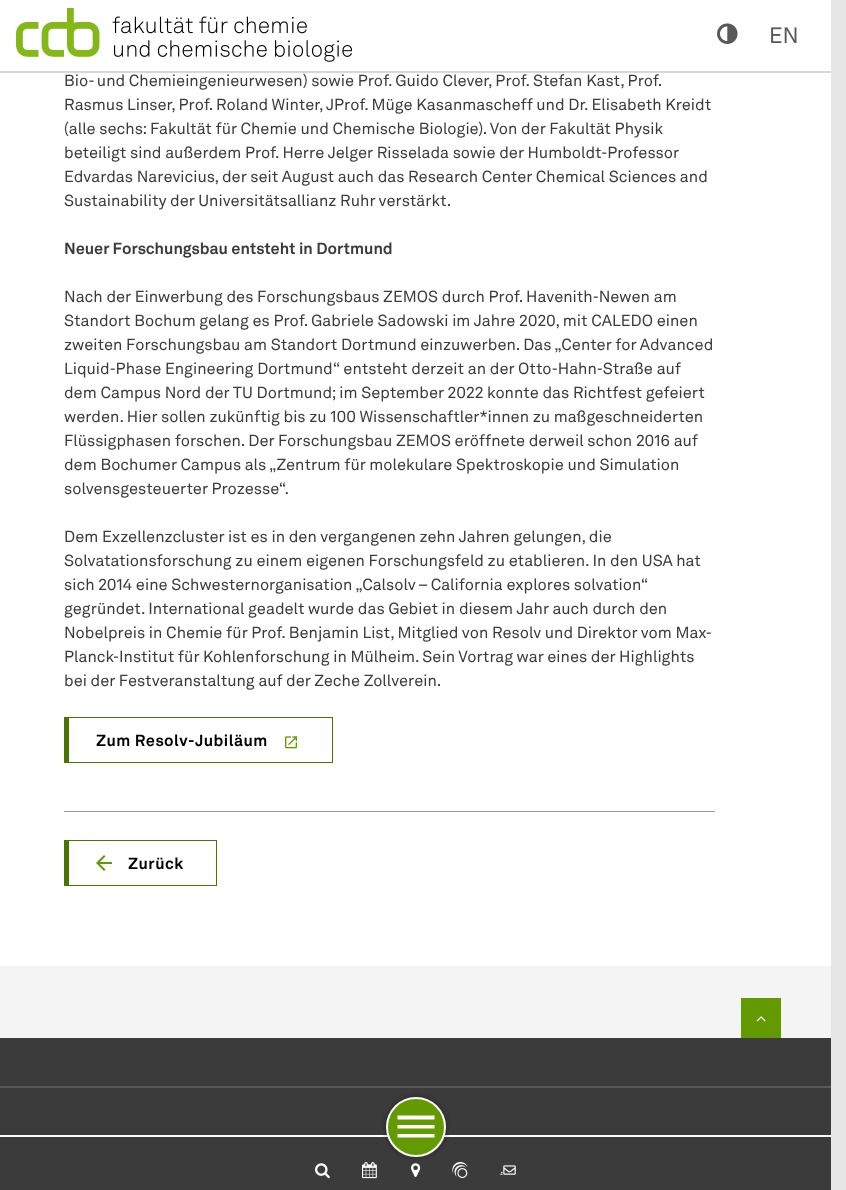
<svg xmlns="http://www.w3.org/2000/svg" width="846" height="1190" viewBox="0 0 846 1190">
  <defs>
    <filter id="blur1" x="-50%" y="-200%" width="200%" height="500%"><feGaussianBlur stdDeviation="2"/></filter>
  </defs>
  <rect width="100%" height="100%" fill="#e6e6e6"/>
  <rect x="0" y="0" width="831" height="71" fill="#ffffff"/>
  <rect x="0" y="71" width="831" height="2" fill="#d8d8d8"/>
  <image x="16" y="8" width="336" height="54" href="img1.png"/>
  <image x="717" y="23" width="21" height="21" href="img2.png"/>
  <image x="771" y="27" width="26" height="16" href="img3.png"/>
  <rect x="0" y="966" width="831" height="72" fill="#f4f4f4"/>
  <rect x="0" y="73" width="831" height="893" fill="#ffffff"/>
  <text x="64" y="86" font-family="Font" font-size="16" fill="#3b3b3b">Bio- und Chemieingenieurwesen) sowie Prof. Guido Clever, Prof. Stefan Kast, Prof.</text>
  <text x="64" y="110" font-family="Font" font-size="16" fill="#3b3b3b">Rasmus Linser, Prof. Roland Winter, JProf. Müge Kasanmascheff und Dr. Elisabeth Kreidt</text>
  <text x="64" y="134" font-family="Font" font-size="16" fill="#3b3b3b">(alle sechs: Fakultät für Chemie und Chemische Biologie). Von der Fakultät Physik</text>
  <text x="64" y="158" font-family="Font" font-size="16" fill="#3b3b3b">beteiligt sind außerdem Prof. Herre Jelger Risselada sowie der Humboldt-Professor</text>
  <text x="64" y="182" font-family="Font" font-size="16" fill="#3b3b3b">Edvardas Narevicius, der seit August auch das Research Center Chemical Sciences and</text>
  <text x="64" y="206" font-family="Font" font-size="16" fill="#3b3b3b">Sustainability der Universitätsallianz Ruhr verstärkt.</text>
  <text x="64" y="254" font-family="Font" font-size="16" font-weight="bold" fill="#3b3b3b">Neuer Forschungsbau entsteht in Dortmund</text>
  <text x="64" y="302" font-family="Font" font-size="16" fill="#3b3b3b">Nach der Einwerbung des Forschungsbaus ZEMOS durch Prof. Havenith-Newen am</text>
  <text x="64" y="326" font-family="Font" font-size="16" fill="#3b3b3b">Standort Bochum gelang es Prof. Gabriele Sadowski im Jahre 2020, mit CALEDO einen</text>
  <text x="64" y="350" font-family="Font" font-size="16" fill="#3b3b3b">zweiten Forschungsbau am Standort Dortmund einzuwerben. Das „Center for Advanced</text>
  <text x="64" y="374" font-family="Font" font-size="16" fill="#3b3b3b">Liquid-Phase Engineering Dortmund“ entsteht derzeit an der Otto-Hahn-Straße auf</text>
  <text x="64" y="398" font-family="Font" font-size="16" fill="#3b3b3b">dem Campus Nord der TU Dortmund; im September 2022 konnte das Richtfest gefeiert</text>
  <text x="64" y="422" font-family="Font" font-size="16" fill="#3b3b3b">werden. Hier sollen zukünftig bis zu 100 Wissenschaftler*innen zu maßgeschneiderten</text>
  <text x="64" y="446" font-family="Font" font-size="16" fill="#3b3b3b">Flüssigphasen forschen. Der Forschungsbau ZEMOS eröffnete derweil schon 2016 auf</text>
  <text x="64" y="470" font-family="Font" font-size="16" fill="#3b3b3b">dem Bochumer Campus als „Zentrum für molekulare Spektroskopie und Simulation</text>
  <text x="64" y="494" font-family="Font" font-size="16" fill="#3b3b3b">solvensgesteuerter Prozesse“.</text>
  <text x="64" y="542" font-family="Font" font-size="16" fill="#3b3b3b">Dem Exzellenzcluster ist es in den vergangenen zehn Jahren gelungen, die</text>
  <text x="64" y="566" font-family="Font" font-size="16" fill="#3b3b3b">Solvatationsforschung zu einem eigenen Forschungsfeld zu etablieren. In den USA hat</text>
  <text x="64" y="590" font-family="Font" font-size="16" fill="#3b3b3b">sich 2014 eine Schwesternorganisation „Calsolv – California explores solvation“</text>
  <text x="64" y="614" font-family="Font" font-size="16" fill="#3b3b3b">gegründet. International geadelt wurde das Gebiet in diesem Jahr auch durch den</text>
  <text x="64" y="638" font-family="Font" font-size="16" fill="#3b3b3b">Nobelpreis in Chemie für Prof. Benjamin List, Mitglied von Resolv und Direktor vom Max-</text>
  <text x="64" y="662" font-family="Font" font-size="16" fill="#3b3b3b">Planck-Institut für Kohlenforschung in Mülheim. Sein Vortrag war eines der Highlights</text>
  <text x="64" y="686" font-family="Font" font-size="16" fill="#3b3b3b">bei der Festveranstaltung auf der Zeche Zollverein.</text>
  <rect x="64" y="718" width="5" height="44" fill="#4a7400"/>
  <rect x="64" y="717" width="269" height="1" fill="#4a7400"/>
  <rect x="332" y="717" width="1" height="46" fill="#4a7400"/>
  <rect x="64" y="762" width="269" height="1" fill="#4a7400"/>
  <text x="96" y="746" font-family="Font" font-size="16" font-weight="bold" letter-spacing="0.5" fill="#000000">Zum Resolv-Jubiläum</text>
  <image x="285" y="736" width="12" height="13" href="img4.png"/>
  <rect x="64" y="811" width="651" height="1" fill="#9e9e9e"/>
  <rect x="64" y="841" width="5" height="44" fill="#4a7400"/>
  <rect x="64" y="840" width="153" height="1" fill="#4a7400"/>
  <rect x="216" y="840" width="1" height="46" fill="#4a7400"/>
  <rect x="64" y="885" width="153" height="1" fill="#4a7400"/>
  <image x="96" y="855" width="16" height="16" href="img5.png"/>
  <text x="128" y="869" font-family="Font" font-size="16" font-weight="bold" letter-spacing="0.5" fill="#000000">Zurück</text>
  <rect x="741" y="998" width="40" height="40" fill="#639a00"/>
  <image x="756" y="1016" width="10" height="6" href="img6.png"/>
  <rect x="0" y="1038" width="831" height="97" fill="#3b3b3b"/>
  <rect x="0" y="1086" width="831" height="2" fill="#595959"/>
  <rect x="0" y="1137" width="831" height="53" fill="#3b3b3b"/>
  <rect x="0" y="1135" width="831" height="2" fill="#ffffff"/>
  <image x="411" y="1163" width="10" height="14" href="img9.png"/>
  <image x="452" y="1162" width="16" height="16" href="img10.png"/>
  <rect x="384" y="1095" width="64" height="64" rx="32" fill="#000000" fill-opacity="0.2" filter="url(#blur1)"/>
  <circle cx="416" cy="1127" r="29" fill="#639a00" stroke="#ffffff" stroke-width="2"/>
  <path d="M397.5 1115.5H434.5V1119.5H397.5ZM397.5 1125H434.5V1128.5H397.5ZM397.5 1134H434.5V1137.5H397.5Z" fill="#ffffff"/>
  <image x="315" y="1163" width="15" height="16" href="img7.png"/>
  <image x="362" y="1162" width="15" height="17" href="img8.png"/>
  <image x="500" y="1165" width="16" height="10" href="img11.png"/>
</svg>
